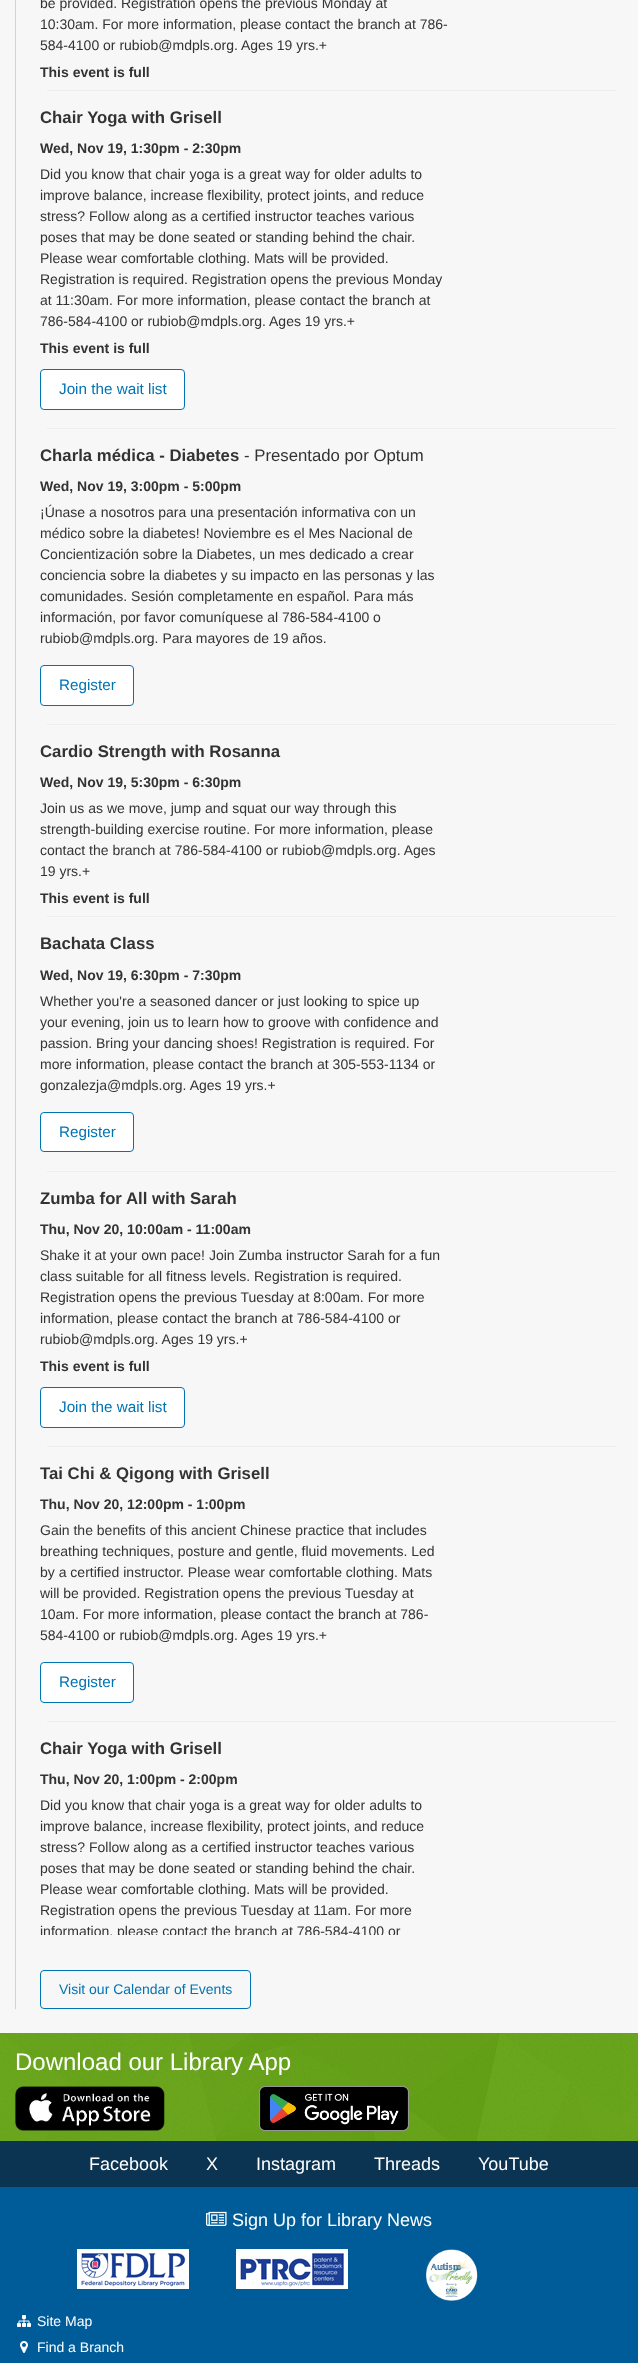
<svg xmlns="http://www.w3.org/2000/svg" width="638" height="2363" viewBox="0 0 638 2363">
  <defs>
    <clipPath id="clip1"><rect x="40" y="1790" width="408" height="145"/></clipPath>
  </defs>
  <rect width="100%" height="100%" fill="#f7f7f7"/>
  <rect x="15" y="0" width="1" height="2009" fill="#d3d3d3"/>
  <text x="40" y="8" font-family="Liberation Sans" font-size="14" fill="#333333">be provided. Registration opens the previous Monday at</text>
  <text x="40" y="29" font-family="Liberation Sans" font-size="14" fill="#333333">10:30am. For more information, please contact the branch at 786-</text>
  <text x="40" y="50" font-family="Liberation Sans" font-size="14" fill="#333333">584-4100 or rubiob@mdpls.org. Ages 19 yrs.+</text>
  <text x="40" y="77" font-family="Liberation Sans" font-size="14" font-weight="bold" fill="#333333">This event is full</text>
  <rect x="47" y="90" width="569" height="1" fill="#eeeeee"/>
  <text x="40" y="123" font-family="Liberation Sans" font-size="16.75" font-weight="bold" fill="#333333">Chair Yoga with Grisell</text>
  <text x="40" y="153" font-family="Liberation Sans" font-size="14" font-weight="bold" fill="#333333">Wed, Nov 19, 1:30pm - 2:30pm</text>
  <text x="40" y="179" font-family="Liberation Sans" font-size="14" fill="#333333">Did you know that chair yoga is a great way for older adults to</text>
  <text x="40" y="200" font-family="Liberation Sans" font-size="14" fill="#333333">improve balance, increase flexibility, protect joints, and reduce</text>
  <text x="40" y="221" font-family="Liberation Sans" font-size="14" fill="#333333">stress? Follow along as a certified instructor teaches various</text>
  <text x="40" y="242" font-family="Liberation Sans" font-size="14" fill="#333333">poses that may be done seated or standing behind the chair.</text>
  <text x="40" y="263" font-family="Liberation Sans" font-size="14" fill="#333333">Please wear comfortable clothing. Mats will be provided.</text>
  <text x="40" y="284" font-family="Liberation Sans" font-size="14" fill="#333333">Registration is required. Registration opens the previous Monday</text>
  <text x="40" y="305" font-family="Liberation Sans" font-size="14" fill="#333333">at 11:30am. For more information, please contact the branch at</text>
  <text x="40" y="326" font-family="Liberation Sans" font-size="14" fill="#333333">786-584-4100 or rubiob@mdpls.org. Ages 19 yrs.+</text>
  <text x="40" y="353" font-family="Liberation Sans" font-size="14" font-weight="bold" fill="#333333">This event is full</text>
  <rect x="40.5" y="369.5" width="144" height="40" rx="3.5" fill="#ffffff" stroke="#0074b3"/>
  <text x="59" y="394" font-family="Liberation Sans" font-size="15.25" fill="#0074b3">Join the wait list</text>
  <rect x="47" y="428" width="569" height="1" fill="#eeeeee"/>
  <text x="40" y="461" font-family="Liberation Sans" font-size="16.75" font-weight="bold" fill="#333333">Charla médica - Diabetes</text>
  <text x="244" y="461" font-family="Liberation Sans" font-size="16.75" fill="#333333">- Presentado por Optum</text>
  <text x="40" y="491" font-family="Liberation Sans" font-size="14" font-weight="bold" fill="#333333">Wed, Nov 19, 3:00pm - 5:00pm</text>
  <text x="40" y="517" font-family="Liberation Sans" font-size="14" fill="#333333">¡Únase a nosotros para una presentación informativa con un</text>
  <text x="40" y="538" font-family="Liberation Sans" font-size="14" fill="#333333">médico sobre la diabetes! Noviembre es el Mes Nacional de</text>
  <text x="40" y="559" font-family="Liberation Sans" font-size="14" fill="#333333">Concientización sobre la Diabetes, un mes dedicado a crear</text>
  <text x="40" y="580" font-family="Liberation Sans" font-size="14" fill="#333333">conciencia sobre la diabetes y su impacto en las personas y las</text>
  <text x="40" y="601" font-family="Liberation Sans" font-size="14" fill="#333333">comunidades. Sesión completamente en español. Para más</text>
  <text x="40" y="622" font-family="Liberation Sans" font-size="14" fill="#333333">información, por favor comuníquese al 786-584-4100 o</text>
  <text x="40" y="643" font-family="Liberation Sans" font-size="14" fill="#333333">rubiob@mdpls.org. Para mayores de 19 años.</text>
  <rect x="40.5" y="665.5" width="93" height="40" rx="3.5" fill="#ffffff" stroke="#0074b3"/>
  <text x="59" y="690" font-family="Liberation Sans" font-size="15.25" fill="#0074b3">Register</text>
  <rect x="47" y="724" width="569" height="1" fill="#eeeeee"/>
  <text x="40" y="757" font-family="Liberation Sans" font-size="16.75" font-weight="bold" fill="#333333">Cardio Strength with Rosanna</text>
  <text x="40" y="787" font-family="Liberation Sans" font-size="14" font-weight="bold" fill="#333333">Wed, Nov 19, 5:30pm - 6:30pm</text>
  <text x="40" y="813" font-family="Liberation Sans" font-size="14" fill="#333333">Join us as we move, jump and squat our way through this</text>
  <text x="40" y="834" font-family="Liberation Sans" font-size="14" fill="#333333">strength-building exercise routine. For more information, please</text>
  <text x="40" y="855" font-family="Liberation Sans" font-size="14" fill="#333333">contact the branch at 786-584-4100 or rubiob@mdpls.org. Ages</text>
  <text x="40" y="876" font-family="Liberation Sans" font-size="14" fill="#333333">19 yrs.+</text>
  <text x="40" y="903" font-family="Liberation Sans" font-size="14" font-weight="bold" fill="#333333">This event is full</text>
  <rect x="47" y="916" width="569" height="1" fill="#eeeeee"/>
  <text x="40" y="949" font-family="Liberation Sans" font-size="16.75" font-weight="bold" fill="#333333">Bachata Class</text>
  <text x="40" y="980" font-family="Liberation Sans" font-size="14" font-weight="bold" fill="#333333">Wed, Nov 19, 6:30pm - 7:30pm</text>
  <text x="40" y="1006" font-family="Liberation Sans" font-size="14" fill="#333333">Whether you're a seasoned dancer or just looking to spice up</text>
  <text x="40" y="1027" font-family="Liberation Sans" font-size="14" fill="#333333">your evening, join us to learn how to groove with confidence and</text>
  <text x="40" y="1048" font-family="Liberation Sans" font-size="14" fill="#333333">passion. Bring your dancing shoes! Registration is required. For</text>
  <text x="40" y="1069" font-family="Liberation Sans" font-size="14" fill="#333333">more information, please contact the branch at 305-553-1134 or</text>
  <text x="40" y="1090" font-family="Liberation Sans" font-size="14" fill="#333333">gonzalezja@mdpls.org. Ages 19 yrs.+</text>
  <rect x="40.5" y="1112.5" width="93" height="39" rx="3.5" fill="#ffffff" stroke="#0074b3"/>
  <text x="59" y="1137" font-family="Liberation Sans" font-size="15.25" fill="#0074b3">Register</text>
  <rect x="47" y="1171" width="569" height="1" fill="#eeeeee"/>
  <text x="40" y="1204" font-family="Liberation Sans" font-size="16.75" font-weight="bold" fill="#333333">Zumba for All with Sarah</text>
  <text x="40" y="1234" font-family="Liberation Sans" font-size="14" font-weight="bold" fill="#333333">Thu, Nov 20, 10:00am - 11:00am</text>
  <text x="40" y="1260" font-family="Liberation Sans" font-size="14" fill="#333333">Shake it at your own pace! Join Zumba instructor Sarah for a fun</text>
  <text x="40" y="1281" font-family="Liberation Sans" font-size="14" fill="#333333">class suitable for all fitness levels. Registration is required.</text>
  <text x="40" y="1302" font-family="Liberation Sans" font-size="14" fill="#333333">Registration opens the previous Tuesday at 8:00am. For more</text>
  <text x="40" y="1323" font-family="Liberation Sans" font-size="14" fill="#333333">information, please contact the branch at 786-584-4100 or</text>
  <text x="40" y="1344" font-family="Liberation Sans" font-size="14" fill="#333333">rubiob@mdpls.org. Ages 19 yrs.+</text>
  <text x="40" y="1371" font-family="Liberation Sans" font-size="14" font-weight="bold" fill="#333333">This event is full</text>
  <rect x="40.5" y="1387.5" width="144" height="40" rx="3.5" fill="#ffffff" stroke="#0074b3"/>
  <text x="59" y="1412" font-family="Liberation Sans" font-size="15.25" fill="#0074b3">Join the wait list</text>
  <rect x="47" y="1446" width="569" height="1" fill="#eeeeee"/>
  <text x="40" y="1479" font-family="Liberation Sans" font-size="16.75" font-weight="bold" fill="#333333">Tai Chi &amp; Qigong with Grisell</text>
  <text x="40" y="1509" font-family="Liberation Sans" font-size="14" font-weight="bold" fill="#333333">Thu, Nov 20, 12:00pm - 1:00pm</text>
  <text x="40" y="1535" font-family="Liberation Sans" font-size="14" fill="#333333">Gain the benefits of this ancient Chinese practice that includes</text>
  <text x="40" y="1556" font-family="Liberation Sans" font-size="14" fill="#333333">breathing techniques, posture and gentle, fluid movements. Led</text>
  <text x="40" y="1577" font-family="Liberation Sans" font-size="14" fill="#333333">by a certified instructor. Please wear comfortable clothing. Mats</text>
  <text x="40" y="1598" font-family="Liberation Sans" font-size="14" fill="#333333">will be provided. Registration opens the previous Tuesday at</text>
  <text x="40" y="1619" font-family="Liberation Sans" font-size="14" fill="#333333">10am. For more information, please contact the branch at 786-</text>
  <text x="40" y="1640" font-family="Liberation Sans" font-size="14" fill="#333333">584-4100 or rubiob@mdpls.org. Ages 19 yrs.+</text>
  <rect x="40.5" y="1662.5" width="93" height="40" rx="3.5" fill="#ffffff" stroke="#0074b3"/>
  <text x="59" y="1687" font-family="Liberation Sans" font-size="15.25" fill="#0074b3">Register</text>
  <rect x="47" y="1721" width="569" height="1" fill="#eeeeee"/>
  <text x="40" y="1754" font-family="Liberation Sans" font-size="16.75" font-weight="bold" fill="#333333">Chair Yoga with Grisell</text>
  <text x="40" y="1784" font-family="Liberation Sans" font-size="14" font-weight="bold" fill="#333333">Thu, Nov 20, 1:00pm - 2:00pm</text>
  <text x="40" y="1810" font-family="Liberation Sans" font-size="14" fill="#333333">Did you know that chair yoga is a great way for older adults to</text>
  <text x="40" y="1831" font-family="Liberation Sans" font-size="14" fill="#333333">improve balance, increase flexibility, protect joints, and reduce</text>
  <text x="40" y="1852" font-family="Liberation Sans" font-size="14" fill="#333333">stress? Follow along as a certified instructor teaches various</text>
  <text x="40" y="1873" font-family="Liberation Sans" font-size="14" fill="#333333">poses that may be done seated or standing behind the chair.</text>
  <text x="40" y="1894" font-family="Liberation Sans" font-size="14" fill="#333333">Please wear comfortable clothing. Mats will be provided.</text>
  <text x="40" y="1915" font-family="Liberation Sans" font-size="14" fill="#333333">Registration opens the previous Tuesday at 11am. For more</text>
  <g clip-path="url(#clip1)">
    <text x="40" y="1936" font-family="Liberation Sans" font-size="14" fill="#333333">information, please contact the branch at 786-584-4100 or</text>
  </g>
  <rect x="40.5" y="1970.5" width="210" height="38" rx="3.5" fill="none" stroke="#0074b3"/>
  <text x="59" y="1994" font-family="Liberation Sans" font-size="14" fill="#0074b3">Visit our Calendar of Events</text>
  <rect x="0" y="2187" width="638" height="176" fill="#005c99"/>
  <image x="0" y="2033" width="638" height="108" href="img1.png"/>
  <text x="15" y="2070" font-family="Liberation Sans" font-size="24" fill="#ffffff">Download our Library App</text>
  <image x="15" y="2086" width="150" height="45" href="img2.png"/>
  <image x="259" y="2086" width="150" height="45" href="img3.png"/>
  <rect x="0" y="2141" width="638" height="46" fill="#0b3352"/>
  <text x="89" y="2170" font-family="Liberation Sans" font-size="18" fill="#ffffff">Facebook</text>
  <text x="206" y="2170" font-family="Liberation Sans" font-size="18" fill="#ffffff">X</text>
  <text x="256" y="2170" font-family="Liberation Sans" font-size="18" fill="#ffffff">Instagram</text>
  <text x="374" y="2170" font-family="Liberation Sans" font-size="18" fill="#ffffff">Threads</text>
  <text x="478" y="2170" font-family="Liberation Sans" font-size="18" fill="#ffffff">YouTube</text>
  <image x="206" y="2211" width="21" height="15" href="img4.png"/>
  <text x="232" y="2226" font-family="Liberation Sans" font-size="18" fill="#ffffff">Sign Up for Library News</text>
  <image x="77" y="2249" width="112" height="40" href="img5.png"/>
  <image x="236" y="2249" width="112" height="40" href="img6.png"/>
  <image x="426" y="2249" width="52" height="52" href="img7.png"/>
  <image x="17" y="2315" width="14" height="12" href="img8.png"/>
  <text x="37" y="2326" font-family="Liberation Sans" font-size="14" fill="#ffffff">Site Map</text>
  <image x="20" y="2341" width="8" height="12" href="img9.png"/>
  <text x="37" y="2352" font-family="Liberation Sans" font-size="14" fill="#ffffff">Find a Branch</text>
</svg>
